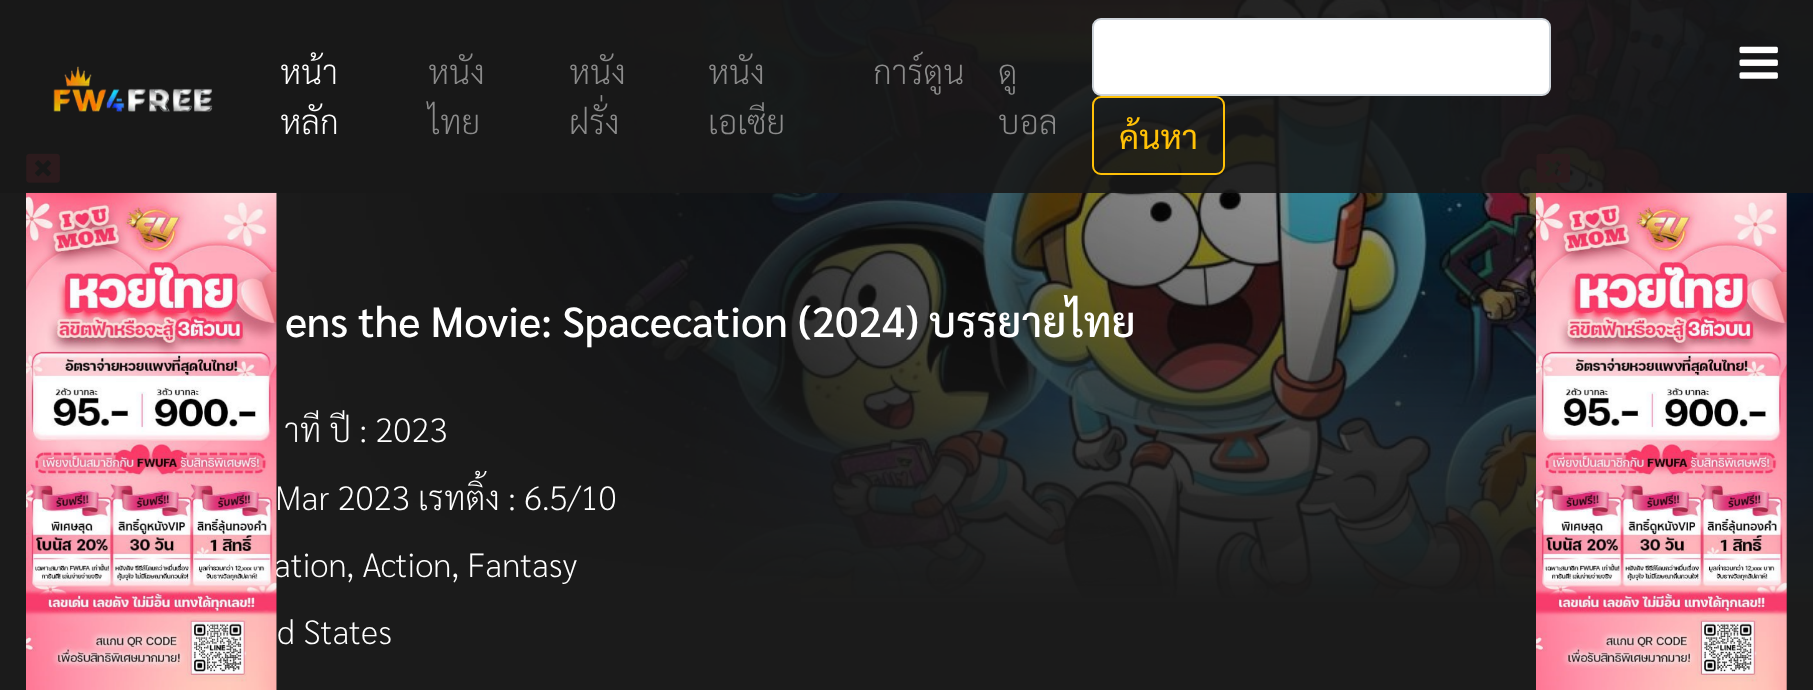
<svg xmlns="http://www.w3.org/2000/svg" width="1813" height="690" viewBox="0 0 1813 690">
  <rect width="100%" height="100%" fill="#ffffff"/>
  <image x="276" y="0" width="1537" height="598" href="img6.png"/>
  <image x="0" y="0" width="1813" height="690" href="img3.png"/>
  <image x="26" y="153" width="34" height="30" href="img4.png"/>
  <text x="274" y="577" font-family="Sarabun" font-size="33.5" font-weight="200" fill="#ffffff">ation, Action, Fantasy</text>
  <image x="26" y="192" width="251" height="498" href="img5.png"/>
  <image x="1536" y="153" width="35" height="30" href="img7.png"/>
  <image x="1536" y="192" width="251" height="498" href="img8.png"/>
  <rect x="0" y="0" width="1813" height="193" fill="#181818" fill-opacity="0.9"/>
  <image x="53" y="66" width="160" height="46" href="img1.png"/>
  <text x="280" y="84" font-family="Sarabun" font-size="33.5" font-weight="200" fill="#ffffff">หน้า</text>
  <text x="280" y="134" font-family="Sarabun" font-size="33.5" font-weight="200" fill="#ffffff">หลัก</text>
  <text x="428" y="84" font-family="Sarabun" font-size="33.5" font-weight="200" fill="#8b8b8b">หนัง</text>
  <text x="428" y="134" font-family="Sarabun" font-size="33.5" font-weight="200" fill="#8b8b8b">ไทย</text>
  <text x="569" y="84" font-family="Sarabun" font-size="33.5" font-weight="200" fill="#8b8b8b">หนัง</text>
  <text x="569" y="134" font-family="Sarabun" font-size="33.5" font-weight="200" fill="#8b8b8b">ฝรั่ง</text>
  <text x="708" y="84" font-family="Sarabun" font-size="33.5" font-weight="200" fill="#8b8b8b">หนัง</text>
  <text x="708" y="134" font-family="Sarabun" font-size="33.5" font-weight="200" fill="#8b8b8b">เอเซีย</text>
  <text x="873" y="84" font-family="Sarabun" font-size="33.5" font-weight="200" fill="#8b8b8b">การ์ตูน</text>
  <text x="998" y="84" font-family="Sarabun" font-size="33.5" font-weight="200" fill="#8b8b8b">ดู</text>
  <text x="998" y="134" font-family="Sarabun" font-size="33.5" font-weight="200" fill="#8b8b8b">บอล</text>
  <rect x="1093" y="19" width="457" height="76" rx="8" fill="#ffffff" stroke="#ced4da" stroke-width="2"/>
  <rect x="1093" y="97" width="131" height="77" rx="8" fill="none" stroke="#ffc107" stroke-width="2"/>
  <text x="1119" y="149" font-family="Sarabun" font-size="33.5" fill="#ffc107">ค้นหา</text>
  <image x="1739" y="46" width="39" height="33" href="img2.png"/>
  <text x="285" y="337" font-family="Sarabun" font-size="42" font-weight="500" fill="#ffffff">ens the Movie: Spacecation (2024) บรรยายไทย</text>
  <text x="284" y="442" font-family="Sarabun" font-size="33.5" font-weight="200" fill="#ffffff">าที ปี : 2023</text>
  <text x="275" y="510" font-family="Sarabun" font-size="33.5" font-weight="200" fill="#ffffff">Mar 2023 เรทติ้ง :</text>
  <text x="524" y="510" font-family="Sarabun" font-size="33.5" font-weight="200" fill="#ffffff">6.5/10</text>
  <text x="277" y="644" font-family="Sarabun" font-size="33.5" font-weight="200" fill="#ffffff">d States</text>
</svg>
